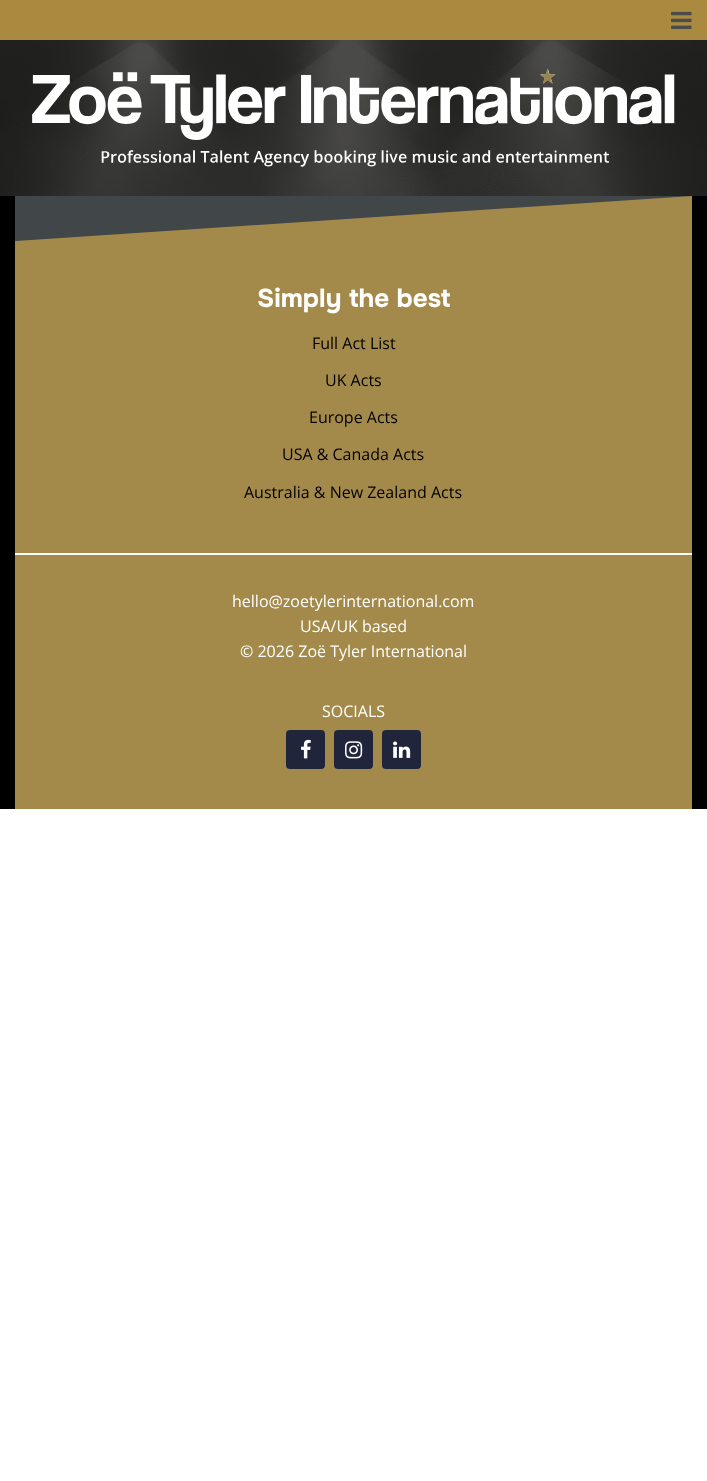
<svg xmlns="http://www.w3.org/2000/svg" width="707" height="1481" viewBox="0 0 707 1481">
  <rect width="100%" height="100%" fill="#ffffff"/>
  <rect x="0" y="196" width="707" height="613" fill="#000000"/>
  <rect x="0" y="0" width="707" height="40" fill="#a98a3e"/>
  <image x="671" y="11" width="21" height="18" href="img1.png"/>
  <image x="0" y="40" width="707" height="156" href="img2.png"/>
  <image x="32" y="68" width="643" height="99" href="img3.png"/>
  <rect x="15" y="241" width="677" height="568" fill="#a48a4a"/>
  <rect x="15" y="196" width="677" height="45" fill="#414648"/>
  <path d="M16 241H692V196Z" fill="#a48a4a"/>
  <text x="257" y="307" font-family="Onest" font-size="26" font-weight="bold" fill="#ffffff">Simply the best</text>
  <text x="312" y="349" font-family="Open Sans" font-size="16" fill="#000000">Full Act List</text>
  <text x="325" y="386" font-family="Open Sans" font-size="16" fill="#000000">UK Acts</text>
  <text x="309" y="423" font-family="Open Sans" font-size="16" fill="#000000">Europe Acts</text>
  <text x="282" y="460" font-family="Open Sans" font-size="16" fill="#000000">USA &amp; Canada Acts</text>
  <text x="244" y="498" font-family="Open Sans" font-size="16" fill="#000000">Australia &amp; New Zealand Acts</text>
  <rect x="15" y="553" width="677" height="2" fill="#ffffff"/>
  <text x="232" y="607" font-family="Open Sans" font-size="16" fill="#ffffff">hello@zoetylerinternational.com</text>
  <text x="300" y="632" font-family="Open Sans" font-size="16" fill="#ffffff">USA/UK based</text>
  <text x="240" y="657" font-family="Open Sans" font-size="16" fill="#ffffff">© 2026 Zoë Tyler International</text>
  <text x="322" y="717" font-family="Open Sans" font-size="16" fill="#ffffff">SOCIALS</text>
  <rect x="286" y="730" width="39" height="39" rx="4" fill="#21253c"/>
  <image x="301" y="739" width="10" height="20" href="img4.png"/>
  <rect x="334" y="730" width="39" height="39" rx="4" fill="#21253c"/>
  <image x="345" y="741" width="18" height="18" href="img5.png"/>
  <rect x="382" y="730" width="39" height="39" rx="4" fill="#21253c"/>
  <image x="393" y="741" width="18" height="17" href="img6.png"/>
</svg>
